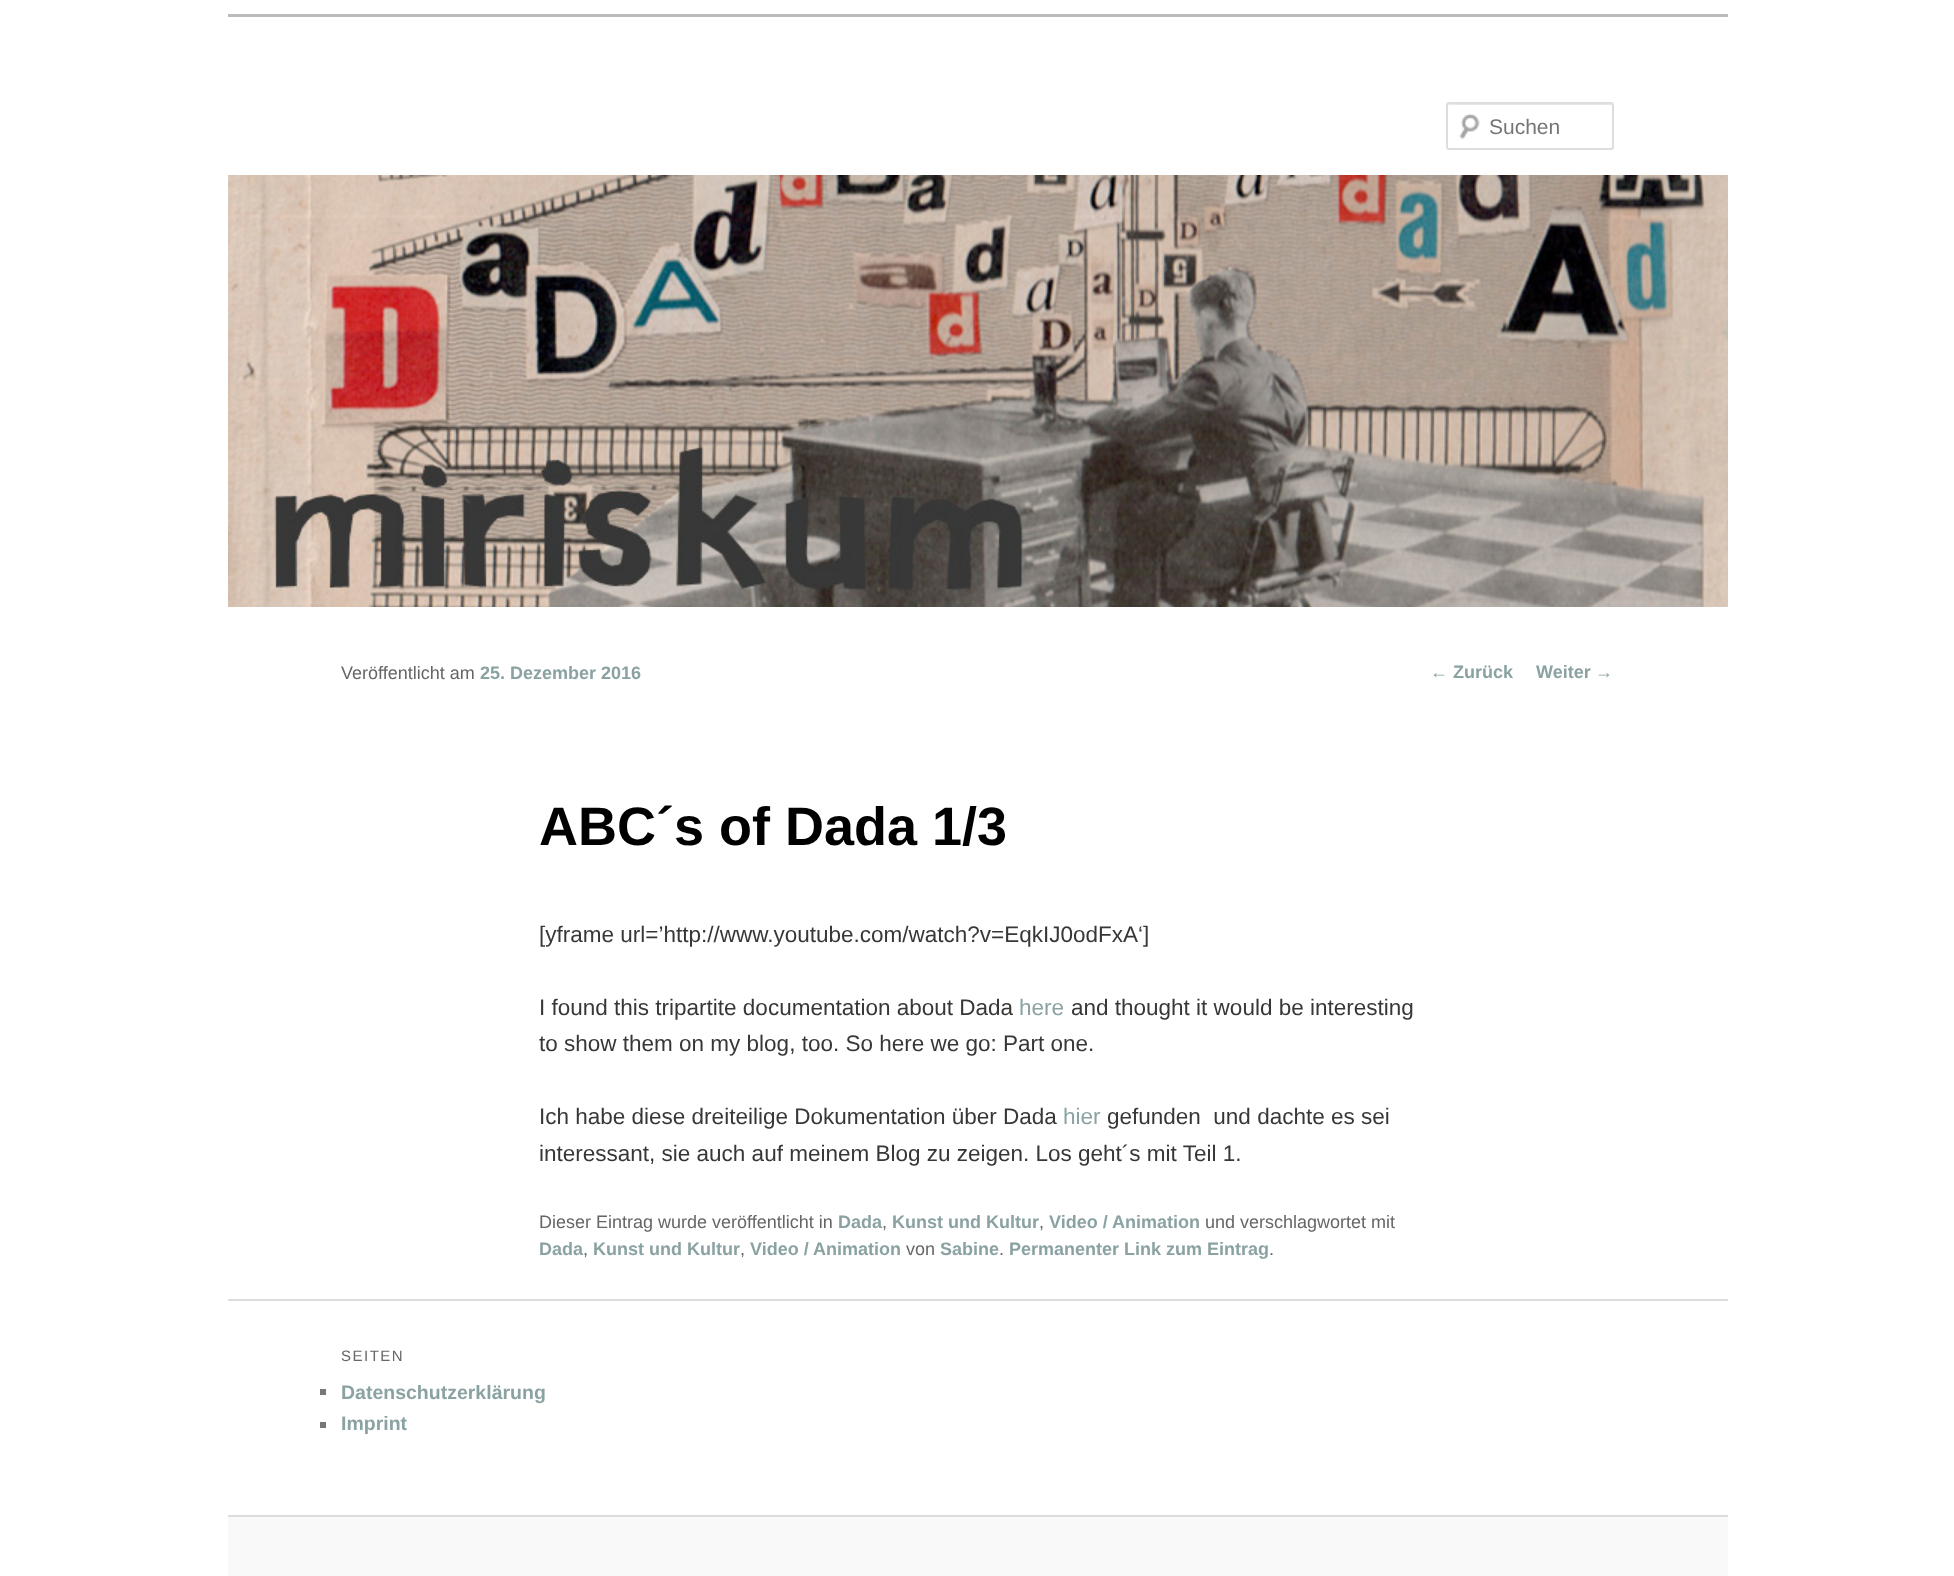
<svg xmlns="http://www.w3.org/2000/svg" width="1954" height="1576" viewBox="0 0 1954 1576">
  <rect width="100%" height="100%" fill="#ffffff"/>
  <rect x="228" y="14" width="1500" height="3" fill="#bbbbbb"/>
  <image x="1459" y="113" width="21" height="27" href="img1.png"/>
  <path d="M1449 105H1611C1612 105 1612 106 1612 106V149C1613 149 1613 148 1613 148V106C1613 105 1612 104 1612 104H1450C1449 104 1448 105 1448 106Z" fill="#e6e6e6"/>
  <rect x="1447" y="103" width="166" height="46" rx="2" fill="none" stroke="#dddddd" stroke-width="2"/>
  <text x="1489" y="134" font-family="Liberation Sans" font-size="21" fill="#757575">Suchen</text>
  <image x="228" y="175" width="1500" height="432" href="img2.png"/>
  <text x="341" y="679" font-family="Liberation Sans" font-size="18" fill="#666666">Veröffentlicht am</text>
  <text x="480" y="679" font-family="Liberation Sans" font-size="18" font-weight="bold" fill="#8ba2a2">25. Dezember 2016</text>
  <text x="539" y="845" font-family="Liberation Sans" font-size="54" font-weight="bold" fill="#000000">ABC´s of Dada 1/3</text>
  <text x="539" y="942" font-family="Liberation Sans" font-size="22.5" fill="#373737">[yframe url=’http://www.youtube.com/watch?v=EqkIJ0odFxA‘]</text>
  <text x="539" y="1015" font-family="Liberation Sans" font-size="22.5" fill="#373737">I found this tripartite documentation about Dada</text>
  <text x="1019" y="1015" font-family="Liberation Sans" font-size="22.5" fill="#8ba2a2">here</text>
  <text x="1071" y="1015" font-family="Liberation Sans" font-size="22.5" fill="#373737">and thought it would be interesting</text>
  <text x="539" y="1051" font-family="Liberation Sans" font-size="22.5" fill="#373737">to show them on my blog, too. So here we go: Part one.</text>
  <text x="539" y="1124" font-family="Liberation Sans" font-size="22.5" fill="#373737">Ich habe diese dreiteilige Dokumentation über Dada</text>
  <text x="1063" y="1124" font-family="Liberation Sans" font-size="22.5" fill="#8ba2a2">hier</text>
  <text x="1107" y="1124" font-family="Liberation Sans" font-size="22.5" fill="#373737" xml:space="preserve">gefunden  und dachte es sei</text>
  <text x="539" y="1161" font-family="Liberation Sans" font-size="22.5" fill="#373737">interessant, sie auch auf meinem Blog zu zeigen. Los geht´s mit Teil 1.</text>
  <text x="539" y="1228" font-family="Liberation Sans" font-size="18" fill="#666666">Dieser Eintrag wurde veröffentlicht in</text>
  <text x="838" y="1228" font-family="Liberation Sans" font-size="18" font-weight="bold" fill="#8ba2a2">Dada</text>
  <text x="882" y="1228" font-family="Liberation Sans" font-size="18" fill="#666666">,</text>
  <text x="892" y="1228" font-family="Liberation Sans" font-size="18" font-weight="bold" fill="#8ba2a2">Kunst und Kultur</text>
  <text x="1039" y="1228" font-family="Liberation Sans" font-size="18" fill="#666666">,</text>
  <text x="1049" y="1228" font-family="Liberation Sans" font-size="18" font-weight="bold" fill="#8ba2a2">Video / Animation</text>
  <text x="1205" y="1228" font-family="Liberation Sans" font-size="18" fill="#666666">und verschlagwortet mit</text>
  <text x="539" y="1255" font-family="Liberation Sans" font-size="18" font-weight="bold" fill="#8ba2a2">Dada</text>
  <text x="583" y="1255" font-family="Liberation Sans" font-size="18" fill="#666666">,</text>
  <text x="593" y="1255" font-family="Liberation Sans" font-size="18" font-weight="bold" fill="#8ba2a2">Kunst und Kultur</text>
  <text x="740" y="1255" font-family="Liberation Sans" font-size="18" fill="#666666">,</text>
  <text x="750" y="1255" font-family="Liberation Sans" font-size="18" font-weight="bold" fill="#8ba2a2">Video / Animation</text>
  <text x="906" y="1255" font-family="Liberation Sans" font-size="18" fill="#666666">von</text>
  <text x="940" y="1255" font-family="Liberation Sans" font-size="18" font-weight="bold" fill="#8ba2a2">Sabine</text>
  <text x="999" y="1255" font-family="Liberation Sans" font-size="18" fill="#666666">.</text>
  <text x="1009" y="1255" font-family="Liberation Sans" font-size="18" font-weight="bold" fill="#8ba2a2">Permanenter Link zum Eintrag</text>
  <text x="1269" y="1255" font-family="Liberation Sans" font-size="18" fill="#666666">.</text>
  <text x="1430" y="678" font-family="Liberation Sans" font-size="18" fill="#8ba2a2">←</text>
  <text x="1453" y="678" font-family="Liberation Sans" font-size="18" font-weight="bold" fill="#8ba2a2">Zurück</text>
  <text x="1536" y="678" font-family="Liberation Sans" font-size="18" font-weight="bold" fill="#8ba2a2">Weiter</text>
  <text x="1595" y="678" font-family="Liberation Sans" font-size="18" fill="#8ba2a2">→</text>
  <rect x="228" y="1299" width="1500" height="2" fill="#dddddd"/>
  <text x="341" y="1361" font-family="Liberation Sans" font-size="15" letter-spacing="1.5" fill="#666666">SEITEN</text>
  <rect x="320" y="1389" width="6" height="6" fill="#777777"/>
  <text x="341" y="1399" font-family="Liberation Sans" font-size="19.5" font-weight="bold" fill="#8ba2a2">Datenschutzerklärung</text>
  <rect x="320" y="1422" width="6" height="6" fill="#777777"/>
  <text x="341" y="1430" font-family="Liberation Sans" font-size="19.5" font-weight="bold" fill="#8ba2a2">Imprint</text>
  <rect x="228" y="1517" width="1500" height="59" fill="#f9f9f9"/>
  <rect x="228" y="1515" width="1500" height="2" fill="#dddddd"/>
</svg>
